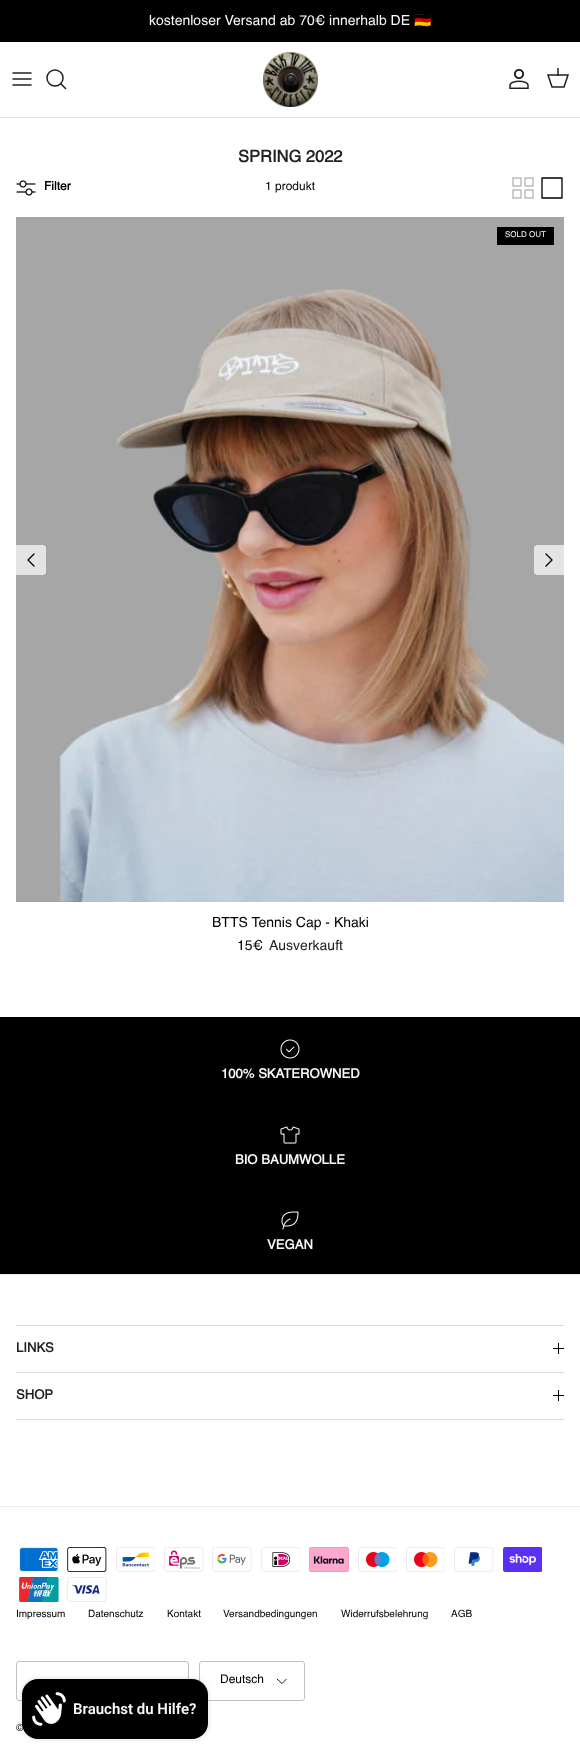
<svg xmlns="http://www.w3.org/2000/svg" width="580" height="1760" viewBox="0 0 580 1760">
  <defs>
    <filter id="blur1" x="-50%" y="-200%" width="200%" height="500%"><feGaussianBlur stdDeviation="2.5"/></filter>
  </defs>
  <rect width="100%" height="100%" fill="#ffffff"/>
  <rect x="0" y="0" width="580" height="42" fill="#000000"/>
  <text x="149" y="25" font-family="Helvetica" font-size="14" fill="#fafafa">kostenloser Versand ab 70€ innerhalb DE</text>
  <text x="414" y="25" font-family="Noto Color Emoji" font-size="14" fill="#fafafa">🇩🇪</text>
  <rect x="0" y="117" width="580" height="1" fill="#e2e2e2"/>
  <path d="M13 79H31M13 73H31M13 85H31" fill="none" stroke="#202223" stroke-width="1.5" stroke-linecap="round" stroke-linejoin="round"/>
  <circle cx="55" cy="78" r="8" fill="none" stroke="#202223" stroke-width="1.5"/>
  <path d="M61 84L65.5 88.5" fill="none" stroke="#202223" stroke-width="1.5" stroke-linecap="square"/>
  <image x="263" y="52" width="55" height="55" href="img1.png"/>
  <image x="509" y="69" width="20" height="20" href="img2.png"/>
  <path d="M548 75H568L564 87H552Z" fill="none" stroke="#202223" stroke-width="1.5"/>
  <rect x="557" y="68" width="2" height="8" fill="#202223" fill-opacity="0.75"/>
  <text x="238" y="162" font-family="Helvetica" font-size="16.5" font-weight="bold" fill="#202223">SPRING 2022</text>
  <image x="16" y="180" width="20" height="16" href="img3.png"/>
  <text x="44" y="190" font-family="Helvetica" font-size="12" font-weight="bold" fill="#000000">Filter</text>
  <text x="265" y="190" font-family="Helvetica" font-size="12" fill="#000000">1 produkt</text>
  <image x="512" y="177" width="22" height="22" href="img4.png"/>
  <path d="M542 178H562V198H542V178" fill="none" stroke="#000000" stroke-width="1.3" stroke-linecap="round" stroke-linejoin="round"/>
  <image x="16" y="217" width="548" height="685" href="img5.png"/>
  <rect x="497" y="227" width="57" height="18" fill="#000000"/>
  <text x="505" y="237" font-family="Helvetica" font-size="8" fill="#fafafa">SOLD OUT</text>
  <path d="M16 545H43C44.5 545 46 546.5 46 548V572C46 573.5 44.5 575 43 575H16Z" fill="#e5e4e5"/>
  <path d="M34 566L28 560L34 554" fill="none" stroke="#000000" stroke-width="1.3" stroke-linecap="round" stroke-linejoin="round"/>
  <path d="M537 545H564V575H537C535.5 575 534 573.5 534 572V548C534 546.5 535.5 545 537 545Z" fill="#e5e4e5"/>
  <path d="M546 566L552 560L546 554" fill="none" stroke="#000000" stroke-width="1.3" stroke-linecap="round" stroke-linejoin="round"/>
  <text x="212" y="927" font-family="Helvetica" font-size="14" fill="#000000">BTTS Tennis Cap - Khaki</text>
  <text x="237" y="950" font-family="Helvetica" font-size="14" fill="#000000">15€</text>
  <text x="269" y="950" font-family="Helvetica" font-size="14" fill="#202223">Ausverkauft</text>
  <rect x="0" y="1017" width="580" height="257" fill="#000000"/>
  <image x="280" y="1039" width="20" height="20" href="img6.png"/>
  <text x="221" y="1078" font-family="Helvetica" font-size="13.1" font-weight="bold" fill="#fafafa">100% SKATEROWNED</text>
  <image x="280" y="1126" width="20" height="18" href="img7.png"/>
  <text x="235" y="1164" font-family="Helvetica" font-size="13.1" font-weight="bold" fill="#fafafa">BIO BAUMWOLLE</text>
  <image x="281" y="1211" width="18" height="19" href="img8.png"/>
  <text x="267" y="1249" font-family="Helvetica" font-size="13.1" font-weight="bold" fill="#fafafa">VEGAN</text>
  <rect x="0" y="1274" width="580" height="1" fill="#eeeeee"/>
  <rect x="16" y="1325" width="548" height="1" fill="#d9d9d9"/>
  <text x="16" y="1352" font-family="Helvetica" font-size="13.1" font-weight="bold" fill="#202223">LINKS</text>
  <rect x="558" y="1343" width="1" height="11" fill="#000000"/>
  <rect x="553" y="1348" width="11" height="1" fill="#000000"/>
  <rect x="16" y="1372" width="548" height="1" fill="#d9d9d9"/>
  <rect x="16" y="1419" width="548" height="1" fill="#d9d9d9"/>
  <text x="16" y="1399" font-family="Helvetica" font-size="13.1" font-weight="bold" fill="#202223">SHOP</text>
  <rect x="558" y="1390" width="1" height="11" fill="#000000"/>
  <rect x="553" y="1395" width="11" height="1" fill="#000000"/>
  <rect x="0" y="1506" width="580" height="1" fill="#eeeeee"/>
  <image x="19" y="1547" width="40" height="25" href="img9.png"/>
  <image x="67" y="1547" width="40" height="25" href="img10.png"/>
  <image x="116" y="1547" width="39" height="25" href="img11.png"/>
  <image x="164" y="1547" width="40" height="25" href="img12.png"/>
  <image x="212" y="1547" width="40" height="25" href="img13.png"/>
  <image x="261" y="1547" width="39" height="25" href="img14.png"/>
  <image x="309" y="1547" width="40" height="25" href="img15.png"/>
  <image x="358" y="1547" width="39" height="25" href="img16.png"/>
  <image x="406" y="1547" width="39" height="25" href="img17.png"/>
  <image x="454" y="1547" width="40" height="25" href="img18.png"/>
  <image x="503" y="1547" width="39" height="25" href="img19.png"/>
  <image x="19" y="1577" width="40" height="25" href="img20.png"/>
  <image x="67" y="1577" width="40" height="25" href="img21.png"/>
  <text x="16" y="1617" font-family="Helvetica" font-size="10" fill="#000000">Impressum</text>
  <text x="88" y="1617" font-family="Helvetica" font-size="10" fill="#000000">Datenschutz</text>
  <text x="167" y="1617" font-family="Helvetica" font-size="10" fill="#000000">Kontakt</text>
  <text x="223" y="1617" font-family="Helvetica" font-size="10" fill="#000000">Versandbedingungen</text>
  <text x="341" y="1617" font-family="Helvetica" font-size="10" fill="#000000">Widerrufsbelehrung</text>
  <text x="451" y="1617" font-family="Helvetica" font-size="10" fill="#000000">AGB</text>
  <rect x="16.5" y="1661.5" width="172" height="39" rx="2.5" fill="none" stroke="#bfbfbf"/>
  <path d="M170.5 1679L166 1683.5L161 1679" fill="none" stroke="#000000" stroke-width="0.9"/>
  <rect x="199.5" y="1661.5" width="105" height="39" rx="2.5" fill="none" stroke="#bfbfbf"/>
  <text x="220" y="1683" font-family="Helvetica" font-size="12" fill="#000000">Deutsch</text>
  <path d="M286.5 1679L282 1683.5L277 1679" fill="none" stroke="#000000" stroke-width="0.9"/>
  <text x="16" y="1731" font-family="Helvetica" font-size="10" fill="#000000">©</text>
  <rect x="22" y="1679" width="186" height="60" rx="16" fill="#000000" fill-opacity="0.15" filter="url(#blur1)"/>
  <rect x="22" y="1679" width="186" height="60" rx="16" fill="#000000"/>
  <image x="32" y="1692" width="34" height="34" href="img22.png"/>
  <text x="73" y="1714" font-family="Roboto" font-size="15" font-weight="600" fill="#fafafa">Brauchst du Hilfe?</text>
</svg>
